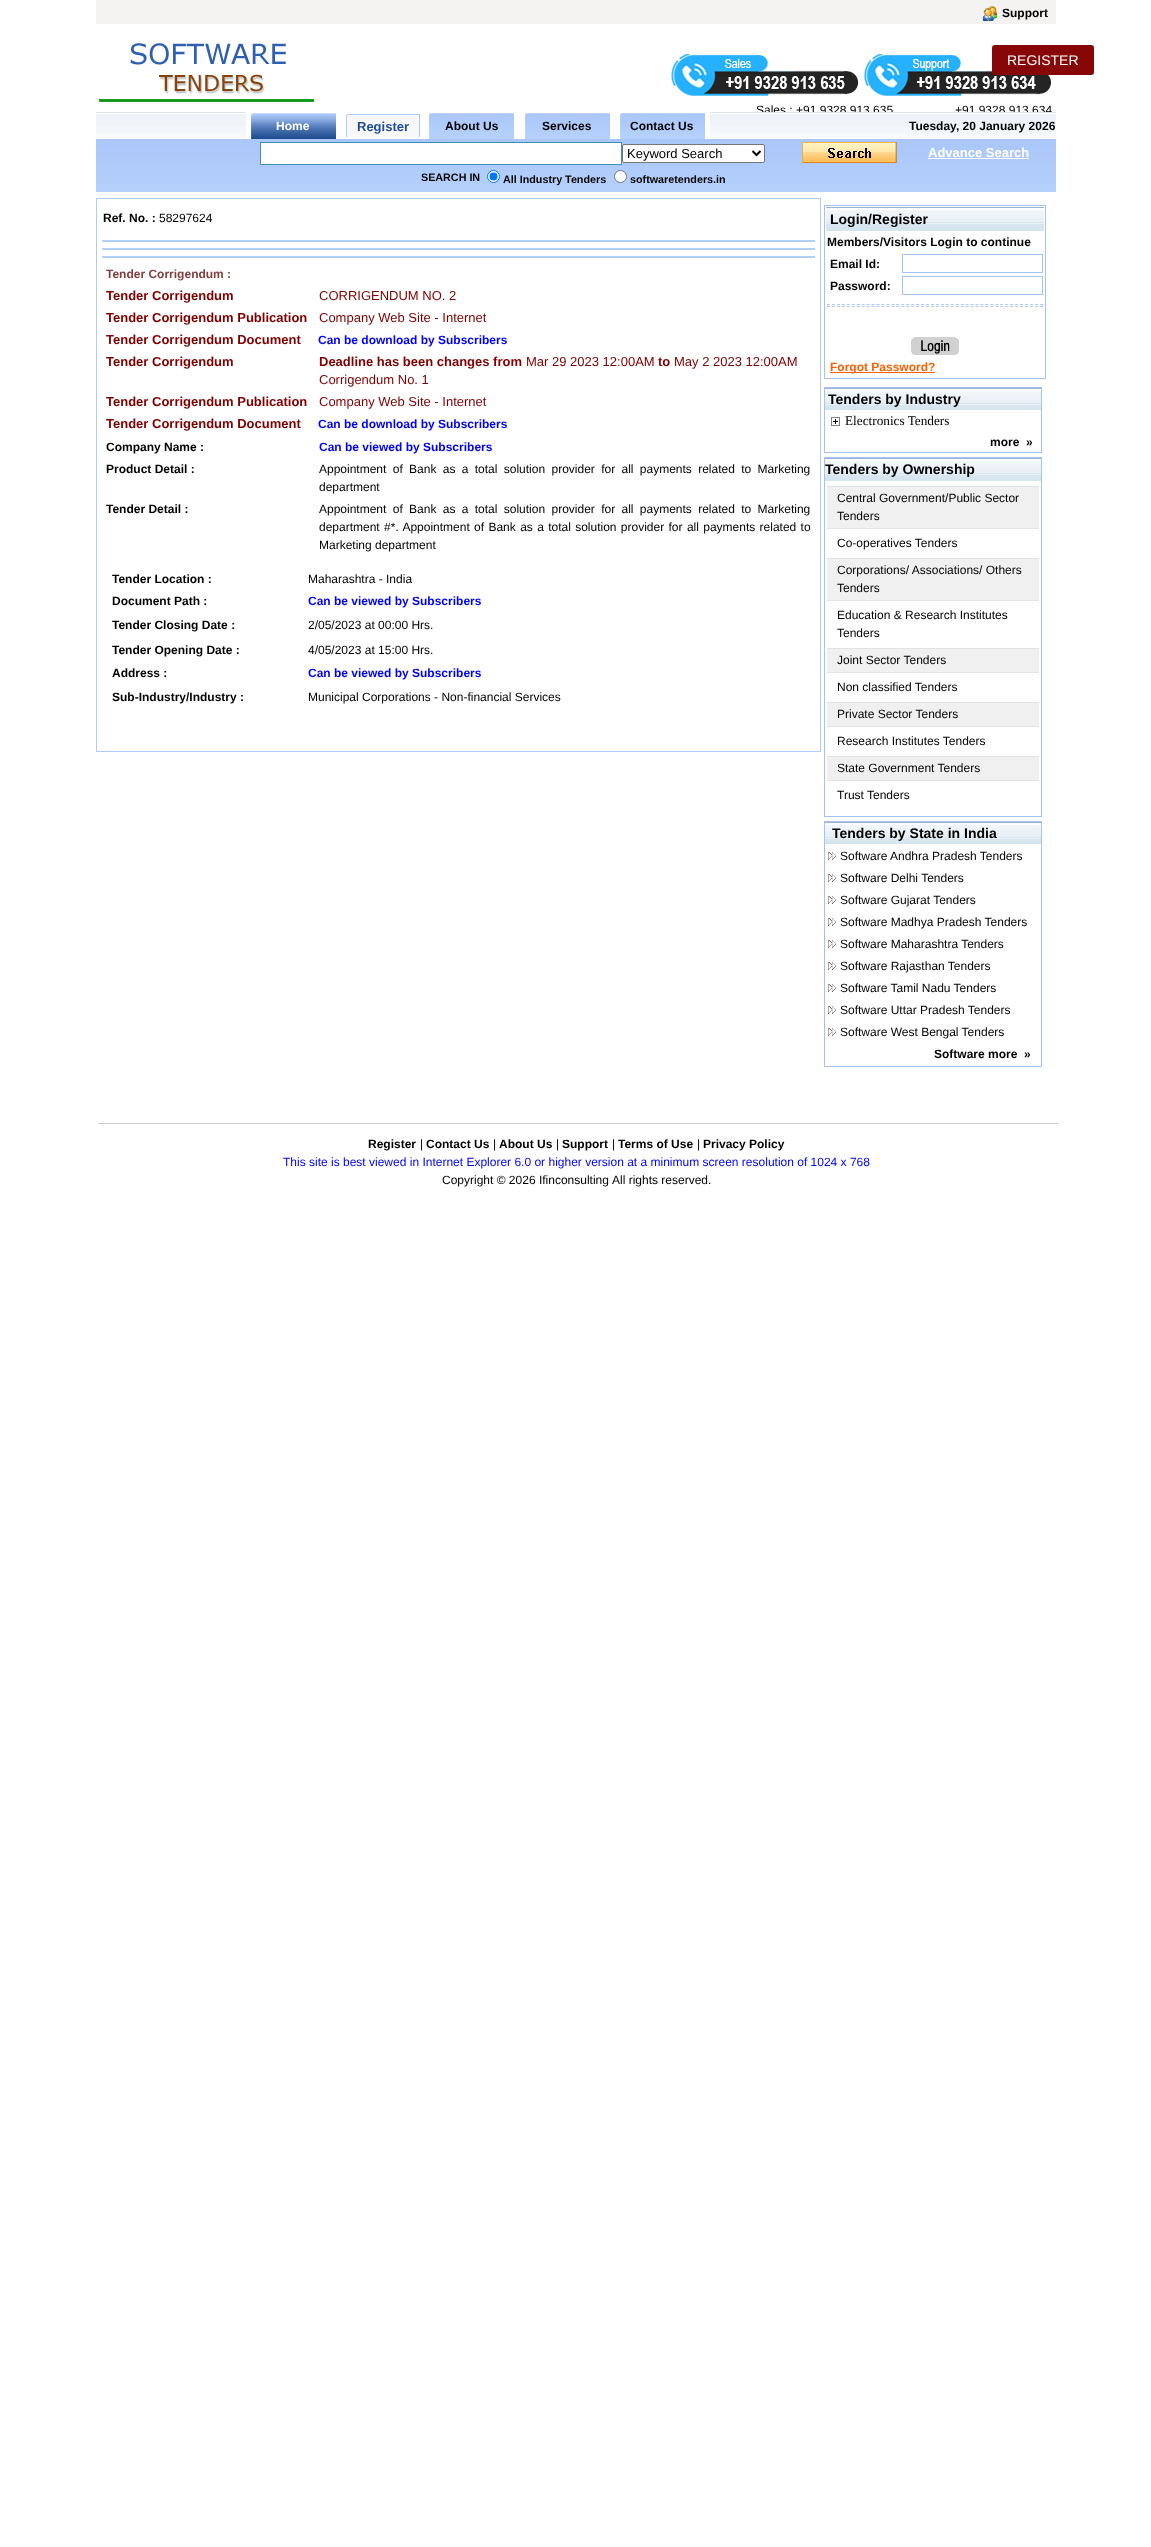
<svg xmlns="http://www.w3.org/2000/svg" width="1151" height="2547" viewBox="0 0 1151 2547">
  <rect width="100%" height="100%" fill="#ffffff"/>
  <rect x="96" y="0" width="960" height="24" fill="#f4f3f2"/>
  <image x="983" y="6" width="14" height="15" href="img1.png"/>
  <text x="1002" y="17" font-family="Liberation Sans" font-size="12" font-weight="bold" fill="#000000">Support</text>
  <image x="99" y="43" width="215" height="59" href="img2.png"/>
  <image x="864" y="54" width="187" height="42" href="img4.png"/>
  <rect x="992" y="45" width="102" height="30" rx="3" fill="#870607"/>
  <text x="1007" y="65" font-family="Liberation Sans" font-size="14" fill="#ffffff">REGISTER</text>
  <image x="671" y="54" width="188" height="42" href="img3.png"/>
  <text x="756" y="114" font-family="Liberation Sans" font-size="12" fill="#000000">Sales : +91 9328 913 635</text>
  <text x="955" y="114" font-family="Liberation Sans" font-size="12" fill="#000000">+91 9328 913 634</text>
  <image x="96" y="112" width="150" height="26" href="img5.png"/>
  <image x="250" y="112" width="86" height="27" href="img6.png"/>
  <text x="276" y="130" font-family="Liberation Sans" font-size="12" font-weight="bold" fill="#ffffff">Home</text>
  <path d="M348 114H420V137H346V116C346 115 347 114 348 114Z" fill="#f8f8f8"/>
  <rect x="347" y="114" width="73" height="1" fill="#acc9fa"/>
  <rect x="419" y="114" width="1" height="23" fill="#acc9fa"/>
  <rect x="346" y="115" width="1" height="22" fill="#acc9fa"/>
  <text x="357" y="131" font-family="Liberation Sans" font-size="13" font-weight="bold" fill="#1d4d97">Register</text>
  <image x="428" y="112" width="86" height="27" href="img7.png"/>
  <text x="445" y="130" font-family="Liberation Sans" font-size="12" font-weight="bold" fill="#000000">About Us</text>
  <image x="524" y="112" width="86" height="27" href="img7.png"/>
  <text x="542" y="130" font-family="Liberation Sans" font-size="12" font-weight="bold" fill="#000000">Services</text>
  <image x="619" y="112" width="86" height="27" href="img7.png"/>
  <text x="630" y="130" font-family="Liberation Sans" font-size="12" font-weight="bold" fill="#000000">Contact Us</text>
  <image x="710" y="112" width="346" height="26" href="img8.png"/>
  <text x="909" y="130" font-family="Liberation Sans" font-size="12" font-weight="bold" fill="#000000">Tuesday, 20 January 2026</text>
  <image x="96" y="139" width="960" height="53" href="img9.png"/>
  <rect x="260.5" y="142.5" width="361" height="22" fill="#ffffff" stroke="#418fb4"/>
  <rect x="622.5" y="144.5" width="142" height="18" rx="1.5" fill="#ffffff" stroke="#767676"/>
  <path d="M752.5 151L756.5 155L760.5 151" fill="none" stroke="#000000" stroke-width="2"/>
  <text x="627" y="158" font-family="Liberation Sans" font-size="13" fill="#000000">Keyword Search</text>
  <image x="802" y="142" width="95" height="21" href="img10.png"/>
  <text x="928" y="157" font-family="Liberation Sans" font-size="13" font-weight="bold" fill="#ffffff">Advance Search</text>
  <rect x="928" y="158" width="101" height="1" fill="#ffffff"/>
  <text x="421" y="181" font-family="Liberation Sans" font-size="10.75" font-weight="bold" fill="#000000">SEARCH IN</text>
  <circle cx="493.5" cy="176.5" r="6" fill="#ffffff" stroke="#0075ff"/>
  <circle cx="493.5" cy="176.5" r="4" fill="#0075ff"/>
  <text x="503" y="183" font-family="Liberation Sans" font-size="10.75" font-weight="bold" fill="#000000">All Industry Tenders</text>
  <circle cx="620.5" cy="176.5" r="6" fill="#ffffff" stroke="#767676"/>
  <text x="630" y="183" font-family="Liberation Sans" font-size="10.75" font-weight="bold" fill="#000000">softwaretenders.in</text>
  <rect x="96.5" y="198.5" width="724" height="553" fill="none" stroke="#aecbfb"/>
  <text x="103" y="222" font-family="Liberation Sans" font-size="12" font-weight="bold" fill="#000000">Ref. No. :</text>
  <text x="159" y="222" font-family="Liberation Sans" font-size="12" fill="#000000">58297624</text>
  <rect x="102" y="240" width="713" height="2" fill="#b2cffb"/>
  <rect x="102" y="248" width="713" height="2" fill="#b2cffb"/>
  <rect x="102" y="256" width="713" height="2" fill="#b2cffb"/>
  <text x="106" y="278" font-family="Liberation Sans" font-size="12" font-weight="bold" fill="#804040">Tender Corrigendum :</text>
  <text x="106" y="300" font-family="Liberation Sans" font-size="13" font-weight="bold" fill="#800000">Tender Corrigendum</text>
  <text x="319" y="300" font-family="Liberation Sans" font-size="13" fill="#800000">CORRIGENDUM NO. 2</text>
  <text x="106" y="322" font-family="Liberation Sans" font-size="13" font-weight="bold" fill="#800000">Tender Corrigendum Publication</text>
  <text x="319" y="322" font-family="Liberation Sans" font-size="13" fill="#800000">Company Web Site - Internet</text>
  <text x="106" y="344" font-family="Liberation Sans" font-size="13" font-weight="bold" fill="#800000">Tender Corrigendum Document</text>
  <text x="318" y="344" font-family="Liberation Sans" font-size="12" font-weight="bold" fill="#0000ff">Can be download by Subscribers</text>
  <text x="106" y="366" font-family="Liberation Sans" font-size="13" font-weight="bold" fill="#800000">Tender Corrigendum</text>
  <text x="319" y="366" font-family="Liberation Sans" font-size="13" font-weight="bold" fill="#800000">Deadline has been changes from</text>
  <text x="526" y="366" font-family="Liberation Sans" font-size="13" fill="#800000">Mar 29 2023 12:00AM</text>
  <text x="658" y="366" font-family="Liberation Sans" font-size="13" font-weight="bold" fill="#800000">to</text>
  <text x="674" y="366" font-family="Liberation Sans" font-size="13" fill="#800000">May 2 2023 12:00AM</text>
  <text x="319" y="384" font-family="Liberation Sans" font-size="13" fill="#800000">Corrigendum No. 1</text>
  <text x="106" y="406" font-family="Liberation Sans" font-size="13" font-weight="bold" fill="#800000">Tender Corrigendum Publication</text>
  <text x="319" y="406" font-family="Liberation Sans" font-size="13" fill="#800000">Company Web Site - Internet</text>
  <text x="106" y="428" font-family="Liberation Sans" font-size="13" font-weight="bold" fill="#800000">Tender Corrigendum Document</text>
  <text x="318" y="428" font-family="Liberation Sans" font-size="12" font-weight="bold" fill="#0000ff">Can be download by Subscribers</text>
  <text x="106" y="451" font-family="Liberation Sans" font-size="12" font-weight="bold" fill="#000000">Company Name :</text>
  <text x="319" y="451" font-family="Liberation Sans" font-size="12" font-weight="bold" fill="#0000ff">Can be viewed by Subscribers</text>
  <text x="106" y="473" font-family="Liberation Sans" font-size="12" font-weight="bold" fill="#000000">Product Detail :</text>
  <text x="319" y="473" word-spacing="3" font-family="Liberation Sans" font-size="12" fill="#000000">Appointment of Bank as a total solution provider for all payments related to Marketing</text>
  <text x="319" y="491" font-family="Liberation Sans" font-size="12" fill="#000000">department</text>
  <text x="106" y="513" font-family="Liberation Sans" font-size="12" font-weight="bold" fill="#000000">Tender Detail :</text>
  <text x="319" y="513" word-spacing="3" font-family="Liberation Sans" font-size="12" fill="#000000">Appointment of Bank as a total solution provider for all payments related to Marketing</text>
  <text x="319" y="531" word-spacing="1" font-family="Liberation Sans" font-size="12" fill="#000000">department #*. Appointment of Bank as a total solution provider for all payments related to</text>
  <text x="319" y="549" font-family="Liberation Sans" font-size="12" fill="#000000">Marketing department</text>
  <text x="112" y="583" font-family="Liberation Sans" font-size="12" font-weight="bold" fill="#000000">Tender Location :</text>
  <text x="308" y="583" font-family="Liberation Sans" font-size="12" fill="#000000">Maharashtra - India</text>
  <text x="112" y="605" font-family="Liberation Sans" font-size="12" font-weight="bold" fill="#000000">Document Path :</text>
  <text x="308" y="605" font-family="Liberation Sans" font-size="12" font-weight="bold" fill="#0000ff">Can be viewed by Subscribers</text>
  <text x="112" y="629" font-family="Liberation Sans" font-size="12" font-weight="bold" fill="#000000">Tender Closing Date :</text>
  <text x="308" y="629" font-family="Liberation Sans" font-size="12" fill="#000000">2/05/2023 at 00:00 Hrs.</text>
  <text x="112" y="654" font-family="Liberation Sans" font-size="12" font-weight="bold" fill="#000000">Tender Opening Date :</text>
  <text x="308" y="654" font-family="Liberation Sans" font-size="12" fill="#000000">4/05/2023 at 15:00 Hrs.</text>
  <text x="112" y="677" font-family="Liberation Sans" font-size="12" font-weight="bold" fill="#000000">Address :</text>
  <text x="308" y="677" font-family="Liberation Sans" font-size="12" font-weight="bold" fill="#0000ff">Can be viewed by Subscribers</text>
  <text x="112" y="701" font-family="Liberation Sans" font-size="12" font-weight="bold" fill="#000000">Sub-Industry/Industry :</text>
  <text x="308" y="701" font-family="Liberation Sans" font-size="12" fill="#000000">Municipal Corporations - Non-financial Services</text>
  <rect x="824.5" y="205.5" width="221" height="173" fill="none" stroke="#a4c2f7"/>
  <image x="826" y="207" width="218" height="24" href="img11.png"/>
  <text x="830" y="224" font-family="Liberation Sans" font-size="14" font-weight="bold" fill="#000000">Login/Register</text>
  <text x="827" y="246" font-family="Liberation Sans" font-size="12" font-weight="bold" fill="#000000">Members/Visitors Login to continue</text>
  <text x="830" y="268" font-family="Liberation Sans" font-size="12" font-weight="bold" fill="#000000">Email Id:</text>
  <rect x="902.5" y="254.5" width="140" height="18" fill="none" stroke="#a4c2f7"/>
  <text x="830" y="290" font-family="Liberation Sans" font-size="12" font-weight="bold" fill="#000000">Password:</text>
  <rect x="902.5" y="276.5" width="140" height="18" fill="none" stroke="#a4c2f7"/>
  <path d="M827 304.5H1043" fill="none" stroke="#aecbfb" stroke-dasharray="3 1.95"/>
  <rect x="1042" y="304" width="1" height="3" fill="#aecbfb"/>
  <path d="M827 306.5H1043" fill="none" stroke="#aecbfb" stroke-dasharray="3 1.95"/>
  <rect x="827" y="304" width="1" height="3" fill="#aecbfb"/>
  <image x="911" y="337" width="48" height="18" href="img12.png"/>
  <rect x="830" y="372" width="105" height="1" fill="#fa5f01"/>
  <text x="830" y="371" font-family="Liberation Sans" font-size="12" font-weight="bold" fill="#fa5f01">Forgot Password?</text>
  <rect x="824.5" y="387.5" width="217" height="65" fill="none" stroke="#a4c2f7"/>
  <image x="825" y="388" width="216" height="22" href="img13.png"/>
  <text x="828" y="404" font-family="Liberation Sans" font-size="14" font-weight="bold" fill="#000000">Tenders by Industry</text>
  <image x="831" y="417" width="9" height="9" href="img14.png"/>
  <text x="845" y="425" font-family="Liberation Serif" font-size="13.25" fill="#000000">Electronics Tenders</text>
  <text x="990" y="446" font-family="Liberation Sans" font-size="12" font-weight="bold" fill="#000000">more</text>
  <text x="1026" y="446" font-family="Liberation Sans" font-size="12" font-weight="bold" fill="#000000">»</text>
  <rect x="824.5" y="457.5" width="217" height="359" fill="none" stroke="#a4c2f7"/>
  <image x="825" y="458" width="216" height="23" href="img15.png"/>
  <text x="825" y="474" font-family="Liberation Sans" font-size="14" font-weight="bold" fill="#000000">Tenders by Ownership</text>
  <rect x="827" y="487" width="212" height="41" fill="#f0f0f0"/>
  <rect x="827" y="486" width="212" height="1" fill="#e2e2e2"/>
  <rect x="827" y="528" width="212" height="1" fill="#e2e2e2"/>
  <text x="837" y="502" font-family="Liberation Sans" font-size="12" fill="#000000">Central Government/Public Sector</text>
  <text x="837" y="520" font-family="Liberation Sans" font-size="12" fill="#000000">Tenders</text>
  <text x="837" y="547" font-family="Liberation Sans" font-size="12" fill="#000000">Co-operatives Tenders</text>
  <rect x="827" y="559" width="212" height="41" fill="#f0f0f0"/>
  <rect x="827" y="558" width="212" height="1" fill="#e2e2e2"/>
  <rect x="827" y="600" width="212" height="1" fill="#e2e2e2"/>
  <text x="837" y="574" font-family="Liberation Sans" font-size="12" fill="#000000">Corporations/ Associations/ Others</text>
  <text x="837" y="592" font-family="Liberation Sans" font-size="12" fill="#000000">Tenders</text>
  <text x="837" y="619" font-family="Liberation Sans" font-size="12" fill="#000000">Education &amp; Research Institutes</text>
  <text x="837" y="637" font-family="Liberation Sans" font-size="12" fill="#000000">Tenders</text>
  <rect x="827" y="649" width="212" height="23" fill="#f0f0f0"/>
  <rect x="827" y="648" width="212" height="1" fill="#e2e2e2"/>
  <rect x="827" y="672" width="212" height="1" fill="#e2e2e2"/>
  <text x="837" y="664" font-family="Liberation Sans" font-size="12" fill="#000000">Joint Sector Tenders</text>
  <text x="837" y="691" font-family="Liberation Sans" font-size="12" fill="#000000">Non classified Tenders</text>
  <rect x="827" y="703" width="212" height="23" fill="#f0f0f0"/>
  <rect x="827" y="702" width="212" height="1" fill="#e2e2e2"/>
  <rect x="827" y="726" width="212" height="1" fill="#e2e2e2"/>
  <text x="837" y="718" font-family="Liberation Sans" font-size="12" fill="#000000">Private Sector Tenders</text>
  <text x="837" y="745" font-family="Liberation Sans" font-size="12" fill="#000000">Research Institutes Tenders</text>
  <rect x="827" y="757" width="212" height="23" fill="#f0f0f0"/>
  <rect x="827" y="756" width="212" height="1" fill="#e2e2e2"/>
  <rect x="827" y="780" width="212" height="1" fill="#e2e2e2"/>
  <text x="837" y="772" font-family="Liberation Sans" font-size="12" fill="#000000">State Government Tenders</text>
  <text x="837" y="799" font-family="Liberation Sans" font-size="12" fill="#000000">Trust Tenders</text>
  <rect x="824.5" y="821.5" width="217" height="245" fill="none" stroke="#a4c2f7"/>
  <image x="825" y="822" width="216" height="22" href="img13.png"/>
  <text x="832" y="838" font-family="Liberation Sans" font-size="14" font-weight="bold" fill="#000000">Tenders by State in India</text>
  <image x="828" y="852" width="8" height="8" href="img16.png"/>
  <text x="840" y="860" font-family="Liberation Sans" font-size="12" fill="#000000">Software</text>
  <text x="890" y="860" font-family="Liberation Sans" font-size="12" fill="#000000">Andhra Pradesh Tenders</text>
  <image x="828" y="874" width="8" height="8" href="img16.png"/>
  <text x="840" y="882" font-family="Liberation Sans" font-size="12" fill="#000000">Software Delhi Tenders</text>
  <image x="828" y="896" width="8" height="8" href="img16.png"/>
  <text x="840" y="904" font-family="Liberation Sans" font-size="12" fill="#000000">Software Gujarat Tenders</text>
  <image x="828" y="918" width="8" height="8" href="img16.png"/>
  <text x="840" y="926" font-family="Liberation Sans" font-size="12" fill="#000000">Software Madhya Pradesh Tenders</text>
  <image x="828" y="940" width="8" height="8" href="img16.png"/>
  <text x="840" y="948" font-family="Liberation Sans" font-size="12" fill="#000000">Software Maharashtra Tenders</text>
  <image x="828" y="962" width="8" height="8" href="img16.png"/>
  <text x="840" y="970" font-family="Liberation Sans" font-size="12" fill="#000000">Software Rajasthan Tenders</text>
  <image x="828" y="984" width="8" height="8" href="img16.png"/>
  <text x="840" y="992" font-family="Liberation Sans" font-size="12" fill="#000000">Software Tamil Nadu Tenders</text>
  <image x="828" y="1006" width="8" height="8" href="img16.png"/>
  <text x="840" y="1014" font-family="Liberation Sans" font-size="12" fill="#000000">Software Uttar Pradesh Tenders</text>
  <image x="828" y="1028" width="8" height="8" href="img16.png"/>
  <text x="840" y="1036" font-family="Liberation Sans" font-size="12" fill="#000000">Software West Bengal Tenders</text>
  <text x="934" y="1058" font-family="Liberation Sans" font-size="12" font-weight="bold" fill="#000000">Software more</text>
  <text x="1024" y="1058" font-family="Liberation Sans" font-size="12" font-weight="bold" fill="#000000">»</text>
  <rect x="98" y="1123" width="960" height="1" fill="#cccccc"/>
  <text x="368" y="1148" font-family="Liberation Sans" font-size="12" font-weight="bold" fill="#000000">Register</text>
  <text x="420" y="1148" font-family="Liberation Sans" font-size="12" fill="#000000">|</text>
  <text x="426" y="1148" font-family="Liberation Sans" font-size="12" font-weight="bold" fill="#000000">Contact Us</text>
  <text x="493" y="1148" font-family="Liberation Sans" font-size="12" fill="#000000">|</text>
  <text x="499" y="1148" font-family="Liberation Sans" font-size="12" font-weight="bold" fill="#000000">About Us</text>
  <text x="556" y="1148" font-family="Liberation Sans" font-size="12" fill="#000000">|</text>
  <text x="562" y="1148" font-family="Liberation Sans" font-size="12" font-weight="bold" fill="#000000">Support</text>
  <text x="612" y="1148" font-family="Liberation Sans" font-size="12" fill="#000000">|</text>
  <text x="618" y="1148" font-family="Liberation Sans" font-size="12" font-weight="bold" fill="#000000">Terms of Use</text>
  <text x="697" y="1148" font-family="Liberation Sans" font-size="12" fill="#000000">|</text>
  <text x="703" y="1148" font-family="Liberation Sans" font-size="12" font-weight="bold" fill="#000000">Privacy Policy</text>
  <text x="283" y="1166" font-family="Liberation Sans" font-size="12" fill="#0000ff">This site is best viewed in Internet Explorer 6.0 or higher version at a minimum screen resolution of 1024 x 768</text>
  <text x="442" y="1184" font-family="Liberation Sans" font-size="12" fill="#000000">Copyright © 2026 Ifinconsulting</text>
  <text x="612" y="1184" font-family="Liberation Sans" font-size="12" fill="#000000">All rights reserved.</text>
</svg>
